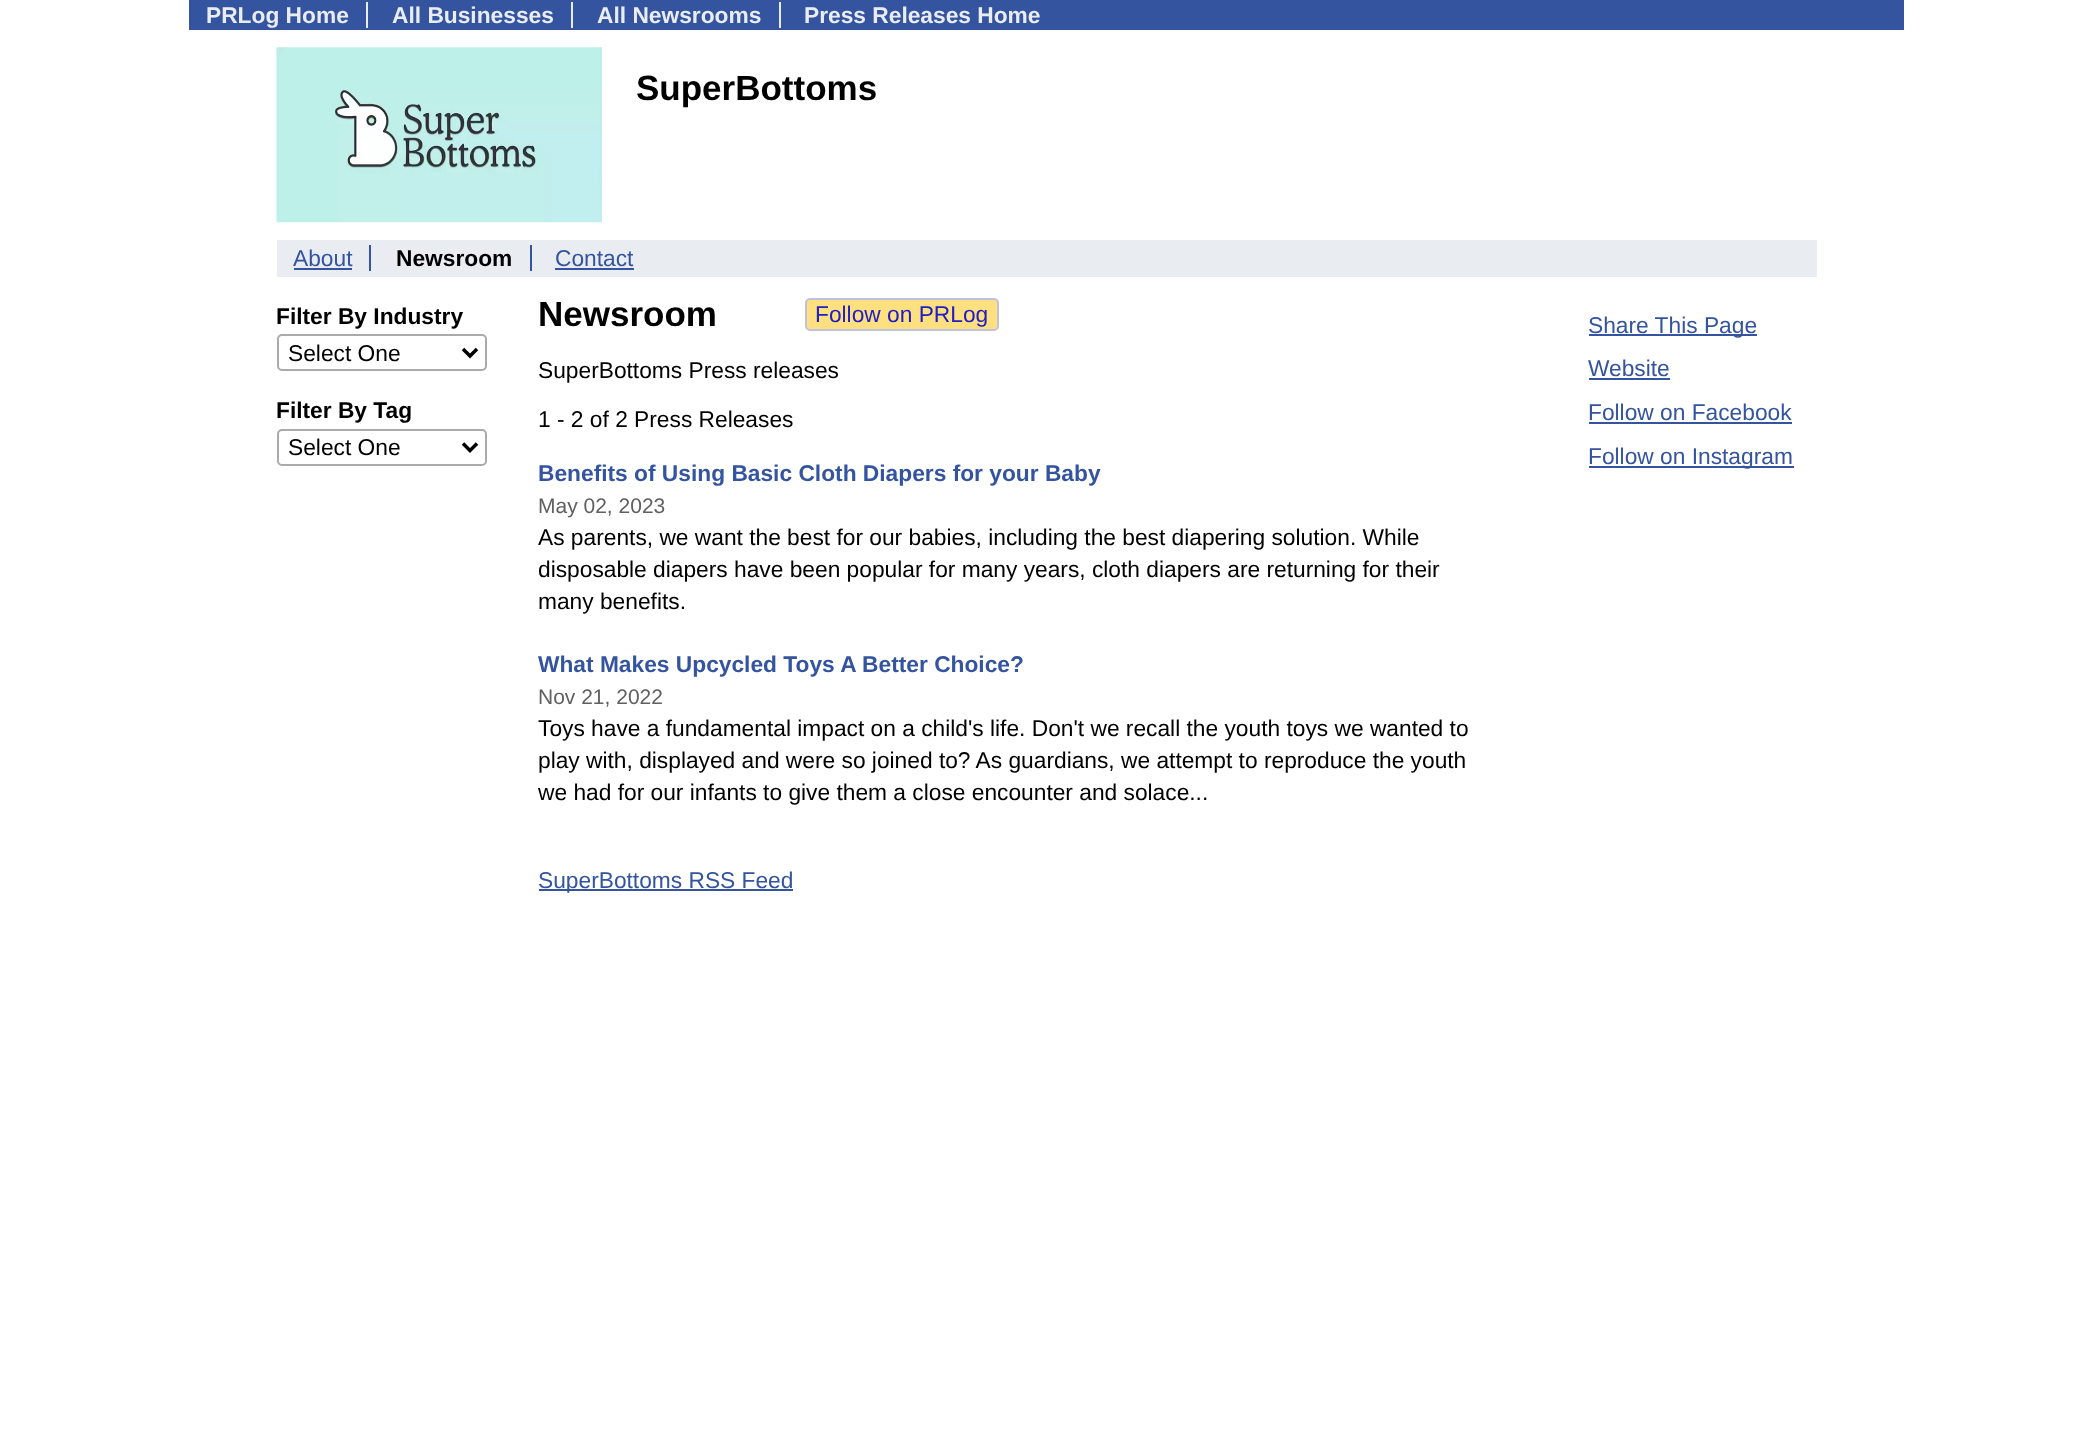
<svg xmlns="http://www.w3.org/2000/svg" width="2090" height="1444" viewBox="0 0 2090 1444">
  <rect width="100%" height="100%" fill="#ffffff"/>
  <rect x="189" y="0" width="1715" height="30" fill="#3454a0"/>
  <rect x="366" y="2" width="2" height="26" fill="#e9edf2"/>
  <text x="206" y="23" font-family="Liberation Sans" font-size="22.75" font-weight="bold" fill="#e9edf2">PRLog Home</text>
  <rect x="571" y="2" width="2" height="26" fill="#e9edf2"/>
  <text x="392" y="23" font-family="Liberation Sans" font-size="22.75" font-weight="bold" fill="#e9edf2">All Businesses</text>
  <rect x="779" y="2" width="2" height="26" fill="#e9edf2"/>
  <text x="597" y="23" font-family="Liberation Sans" font-size="22.75" font-weight="bold" fill="#e9edf2">All Newsrooms</text>
  <text x="804" y="23" font-family="Liberation Sans" font-size="22.75" font-weight="bold" fill="#e9edf2">Press Releases Home</text>
  <image x="276" y="47" width="326" height="176" href="img1.png"/>
  <text x="636" y="100" font-family="Liberation Sans" font-size="35" font-weight="bold" fill="#000000">SuperBottoms</text>
  <rect x="277" y="240" width="1540" height="37" fill="#e9edf2"/>
  <rect x="369" y="245" width="2" height="26" fill="#3454a0"/>
  <text x="293" y="266" font-family="Liberation Sans" font-size="22.75" fill="#3454a0">About</text>
  <rect x="294" y="268" width="58" height="2" fill="#3454a0"/>
  <rect x="530" y="245" width="2" height="26" fill="#3454a0"/>
  <text x="396" y="266" font-family="Liberation Sans" font-size="22.75" font-weight="bold" fill="#000000">Newsroom</text>
  <text x="555" y="266" font-family="Liberation Sans" font-size="22.75" fill="#3454a0">Contact</text>
  <rect x="555" y="268" width="79" height="2" fill="#3454a0"/>
  <text x="276" y="324" font-family="Liberation Sans" font-size="22.75" font-weight="bold" fill="#000000">Filter By Industry</text>
  <rect x="278" y="335" width="208" height="35" rx="4" fill="none" stroke="#aaaaaa" stroke-width="2"/>
  <path d="M463 349L470 356L477 349" fill="none" stroke="#000000" stroke-width="3.5"/>
  <text x="288" y="361" font-family="Liberation Sans" font-size="22.75" fill="#000000">Select One</text>
  <text x="276" y="418" font-family="Liberation Sans" font-size="22.75" font-weight="bold" fill="#000000">Filter By Tag</text>
  <rect x="278" y="430" width="208" height="35" rx="4" fill="none" stroke="#aaaaaa" stroke-width="2"/>
  <path d="M463 443.5L470 450.5L477 443.5" fill="none" stroke="#000000" stroke-width="3.5"/>
  <text x="288" y="455" font-family="Liberation Sans" font-size="22.75" fill="#000000">Select One</text>
  <text x="538" y="326" font-family="Liberation Sans" font-size="35" font-weight="bold" fill="#000000">Newsroom</text>
  <rect x="806" y="299" width="192" height="31" rx="4" fill="#ffe080" stroke="#c0c0e0" stroke-width="2"/>
  <text x="815" y="322" font-family="Liberation Sans" font-size="22.75" fill="#2020c0">Follow on PRLog</text>
  <text x="538" y="378" font-family="Liberation Sans" font-size="22.75" fill="#000000">SuperBottoms Press releases</text>
  <text x="538" y="427" font-family="Liberation Sans" font-size="22.75" fill="#000000">1 - 2 of 2 Press Releases</text>
  <text x="538" y="481" font-family="Liberation Sans" font-size="22.75" font-weight="bold" fill="#3454a0">Benefits of Using Basic Cloth Diapers for your Baby</text>
  <text x="538" y="513" font-family="Liberation Sans" font-size="21" fill="#606060">May 02, 2023</text>
  <text x="538" y="545" font-family="Liberation Sans" font-size="22.75" fill="#000000">As parents, we want the best for our babies, including the best diapering solution. While</text>
  <text x="538" y="577" font-family="Liberation Sans" font-size="22.75" fill="#000000">disposable diapers have been popular for many years, cloth diapers are returning for their</text>
  <text x="538" y="609" font-family="Liberation Sans" font-size="22.75" fill="#000000">many benefits.</text>
  <text x="538" y="672" font-family="Liberation Sans" font-size="22.75" font-weight="bold" fill="#3454a0">What Makes Upcycled Toys A Better Choice?</text>
  <text x="538" y="704" font-family="Liberation Sans" font-size="21" fill="#606060">Nov 21, 2022</text>
  <text x="538" y="736" font-family="Liberation Sans" font-size="22.75" fill="#000000">Toys have a fundamental impact on a child's life. Don't we recall the youth toys we wanted to</text>
  <text x="538" y="768" font-family="Liberation Sans" font-size="22.75" fill="#000000">play with, displayed and were so joined to? As guardians, we attempt to reproduce the youth</text>
  <text x="538" y="800" font-family="Liberation Sans" font-size="22.75" fill="#000000">we had for our infants to give them a close encounter and solace...</text>
  <rect x="539" y="889" width="254" height="2" fill="#3454a0"/>
  <text x="538" y="888" font-family="Liberation Sans" font-size="22.75" fill="#3454a0">SuperBottoms RSS Feed</text>
  <rect x="1589" y="334" width="168" height="2" fill="#3454a0"/>
  <text x="1588" y="333" font-family="Liberation Sans" font-size="22.75" fill="#3454a0">Share This Page</text>
  <text x="1588" y="376" font-family="Liberation Sans" font-size="22.75" fill="#3454a0">Website</text>
  <rect x="1589" y="378" width="81" height="2" fill="#3454a0"/>
  <text x="1588" y="420" font-family="Liberation Sans" font-size="22.75" fill="#3454a0">Follow on Facebook</text>
  <rect x="1589" y="422" width="203" height="2" fill="#3454a0"/>
  <rect x="1589" y="466" width="205" height="2" fill="#3454a0"/>
  <text x="1588" y="464" font-family="Liberation Sans" font-size="22.75" fill="#3454a0">Follow on Instagram</text>
</svg>
